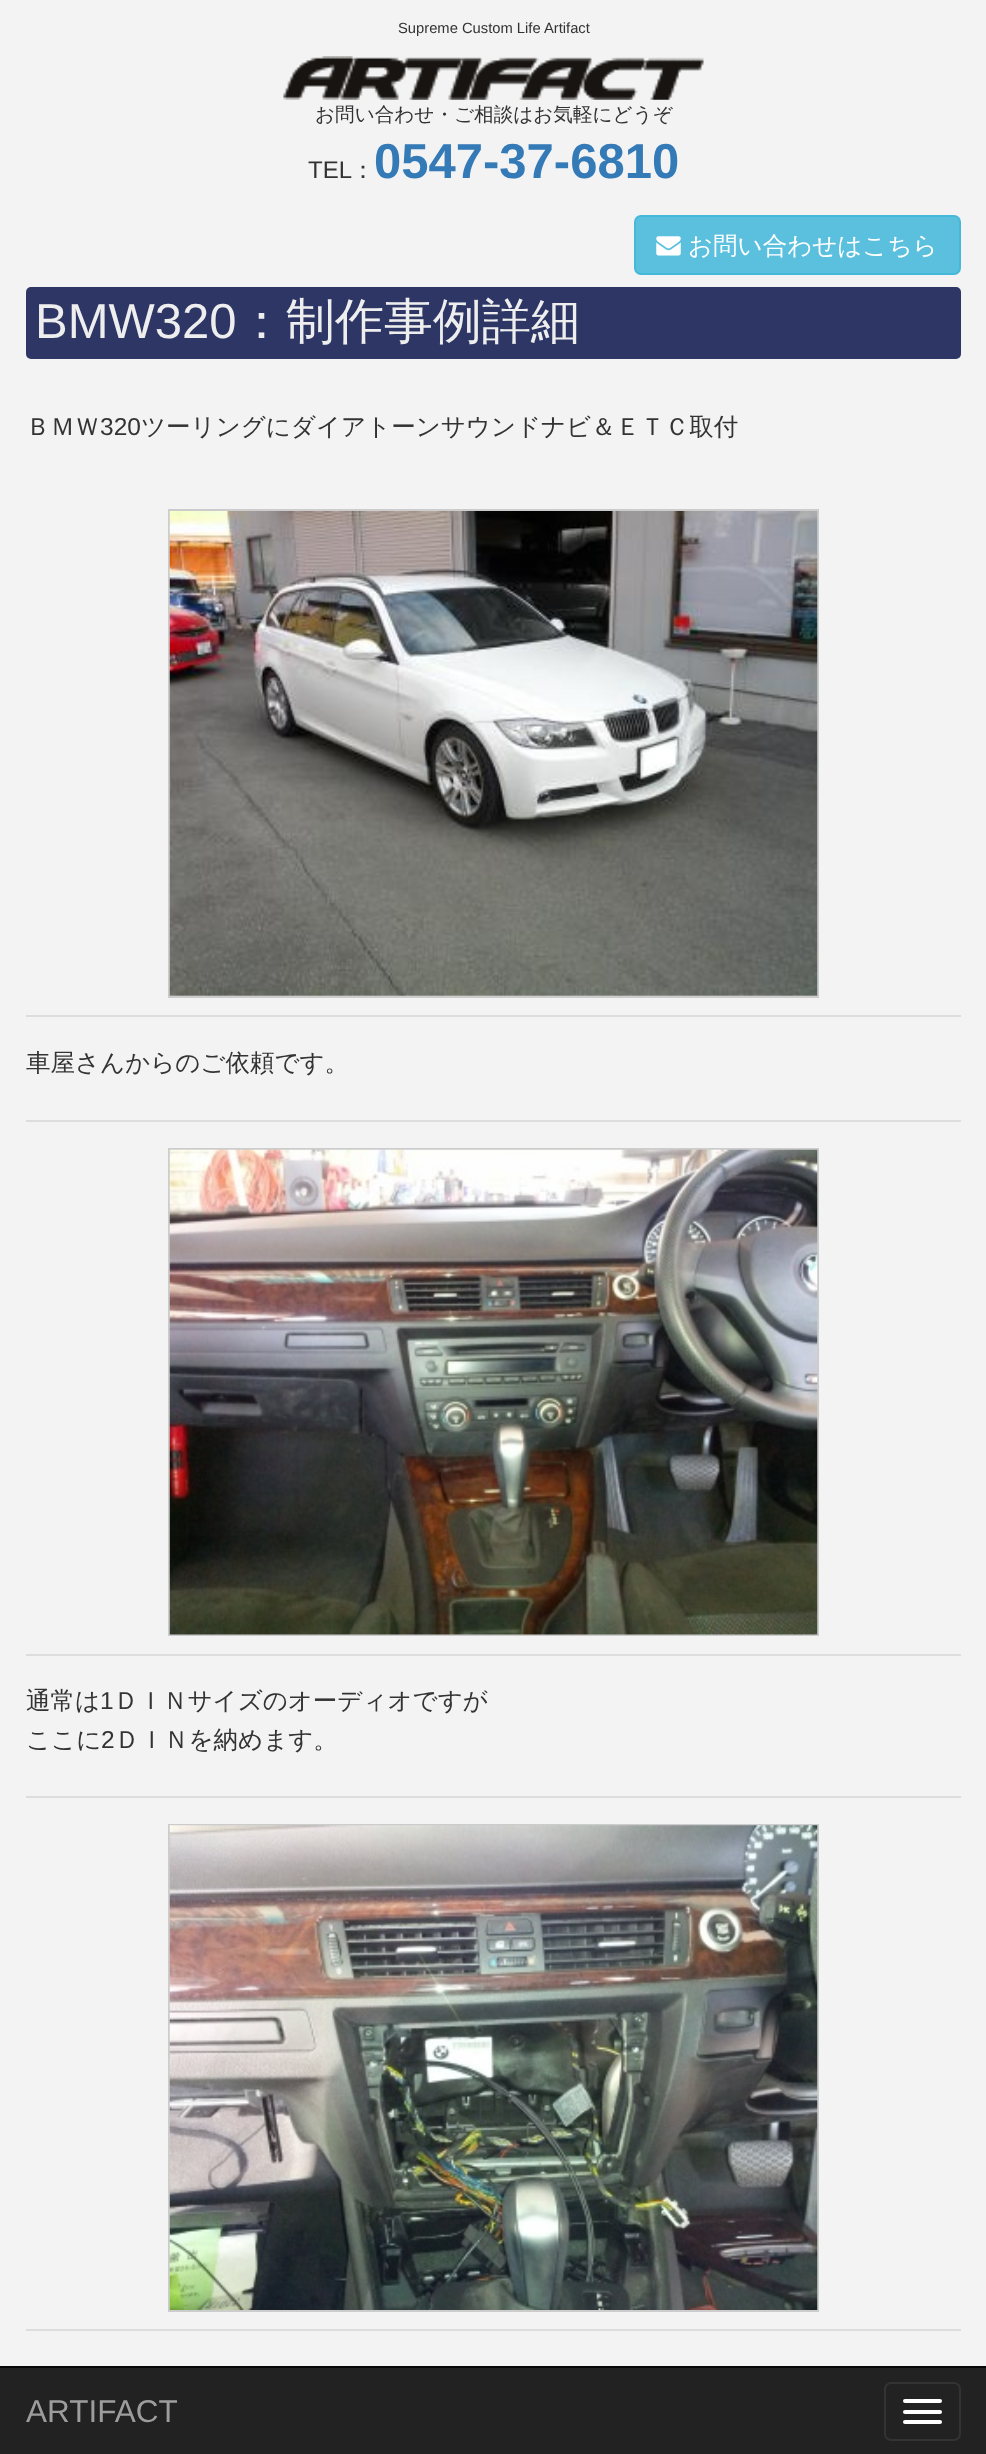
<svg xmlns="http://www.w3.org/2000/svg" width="986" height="2454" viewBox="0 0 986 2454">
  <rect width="100%" height="100%" fill="#f3f3f3"/>
  <text x="398" y="33" font-family="Liberation Sans" font-size="14.75" fill="#333333">Supreme Custom Life Artifact</text>
  <image x="283" y="56" width="421" height="44" href="img1.png"/>
  <text x="315" y="121" font-family="WenQuanYi Zen Hei" font-size="19.6" font-weight="500" fill="#333333">お問い合わせ・ご相談はお気軽にどうぞ</text>
  <text x="308" y="178" font-family="Liberation Sans" font-size="24" fill="#333333">TEL</text>
  <text x="351" y="178" font-family="WenQuanYi Zen Hei" font-size="24" font-weight="500" fill="#333333">：</text>
  <text x="374" y="178" font-family="Liberation Sans" font-size="49" font-weight="bold" fill="#337ab7">0547-37-6810</text>
  <rect x="635" y="216" width="325" height="58" rx="6" fill="#5bc0de" stroke="#46b8da" stroke-width="2"/>
  <image x="656" y="236" width="25" height="20" href="img2.png"/>
  <text x="688" y="254" font-family="WenQuanYi Zen Hei" font-size="24.5" font-weight="500" fill="#ffffff">お問い合わせはこちら</text>
  <rect x="26" y="287" width="935" height="72" rx="5" fill="#2d3664"/>
  <text x="35" y="338" font-family="Liberation Sans" font-size="49" fill="#eeeeee">BMW320</text>
  <text x="237" y="338" font-family="WenQuanYi Zen Hei" font-size="49" font-weight="500" fill="#eeeeee">：制作事例詳細</text>
  <text x="26" y="435" font-family="WenQuanYi Zen Hei" font-size="24.5" font-weight="500" fill="#333333">ＢＭＷ</text>
  <text x="100" y="435" font-family="Liberation Sans" font-size="24.5" fill="#333333">320</text>
  <text x="141" y="435" font-family="WenQuanYi Zen Hei" font-size="24.5" font-weight="500" fill="#333333">ツーリングにダイアトーンサウンドナビ＆ＥＴＣ取付</text>
  <rect x="26" y="1015" width="935" height="2" fill="#dddddd"/>
  <rect x="169" y="510" width="649" height="487" fill="none" stroke="#cccccc" stroke-width="2"/>
  <image x="169" y="511" width="649" height="485" href="img3.png"/>
  <rect x="26" y="1120" width="935" height="2" fill="#dddddd"/>
  <text x="26" y="1071" font-family="WenQuanYi Zen Hei" font-size="24.5" font-weight="500" fill="#333333">車屋さんからのご依頼です。</text>
  <rect x="26" y="1654" width="935" height="2" fill="#dddddd"/>
  <rect x="169" y="1149" width="649" height="486" fill="none" stroke="#cccccc" stroke-width="2"/>
  <image x="169" y="1149" width="649" height="486" href="img4.png"/>
  <rect x="26" y="1796" width="935" height="2" fill="#dddddd"/>
  <text x="26" y="1709" font-family="WenQuanYi Zen Hei" font-size="24.5" font-weight="500" fill="#333333">通常は</text>
  <text x="100" y="1709" font-family="Liberation Sans" font-size="24.5" fill="#333333">1</text>
  <text x="114" y="1709" font-family="WenQuanYi Zen Hei" font-size="24.5" font-weight="500" fill="#333333">ＤＩＮサイズのオーディオですが</text>
  <text x="26" y="1748" font-family="WenQuanYi Zen Hei" font-size="24.5" font-weight="500" fill="#333333">ここに</text>
  <text x="101" y="1748" font-family="Liberation Sans" font-size="24.5" fill="#333333">2</text>
  <text x="115" y="1748" font-family="WenQuanYi Zen Hei" font-size="24.5" font-weight="500" fill="#333333">ＤＩＮを納めます。</text>
  <rect x="26" y="2329" width="935" height="2" fill="#dddddd"/>
  <rect x="169" y="1825" width="649" height="486" fill="none" stroke="#cccccc" stroke-width="2"/>
  <image x="169" y="1825" width="649" height="485" href="img5.png"/>
  <rect x="0" y="2368" width="986" height="86" fill="#222222"/>
  <rect x="0" y="2366" width="986" height="2" fill="#080808"/>
  <text x="26" y="2422" font-family="Liberation Sans" font-size="31.5" fill="#9d9d9d">ARTIFACT</text>
  <rect x="885" y="2383" width="75" height="57" rx="6" fill="none" stroke="#333333" stroke-width="2"/>
  <rect x="903" y="2399" width="39" height="4" rx="2" fill="#ffffff"/>
  <rect x="903" y="2410" width="39" height="4" rx="2" fill="#ffffff"/>
  <rect x="903" y="2420" width="39" height="4" rx="2" fill="#ffffff"/>
</svg>
